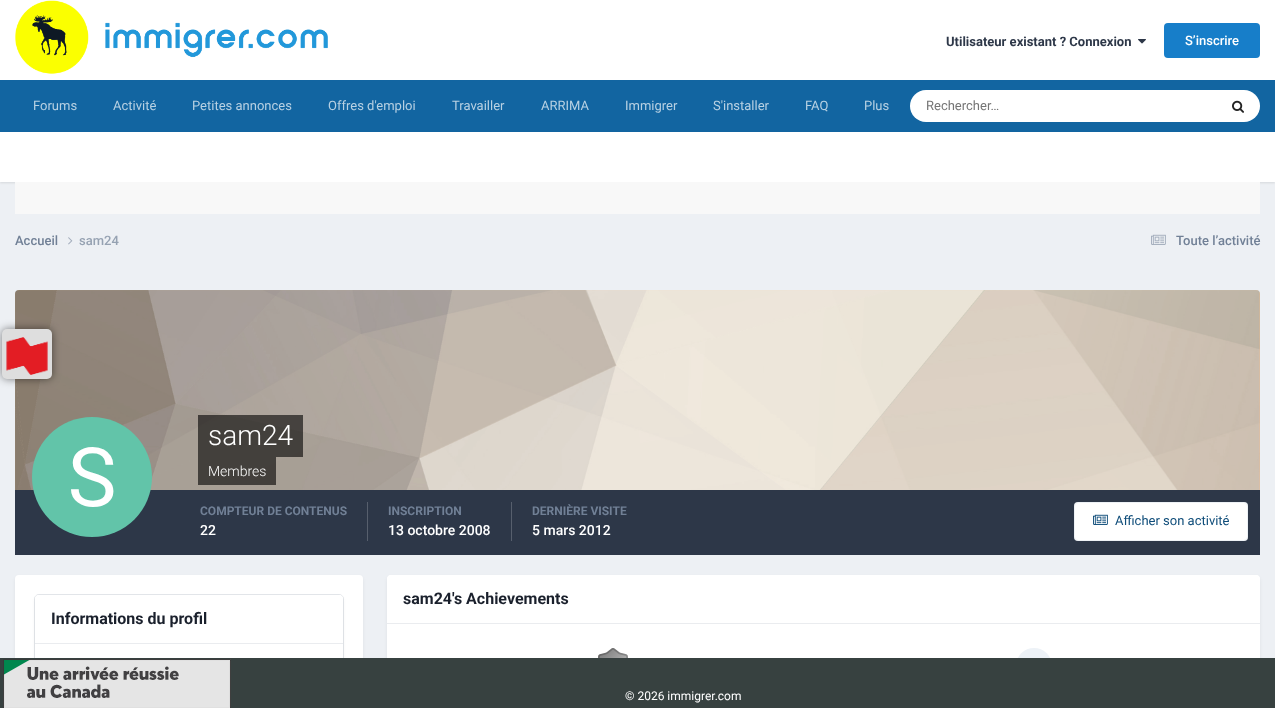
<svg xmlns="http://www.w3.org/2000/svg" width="1275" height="708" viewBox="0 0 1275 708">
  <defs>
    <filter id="blur1" x="-50%" y="-200%" width="200%" height="500%"><feGaussianBlur stdDeviation="1"/></filter>
    <filter id="blur2" x="-50%" y="-200%" width="200%" height="500%"><feGaussianBlur stdDeviation="2"/></filter>
    <filter id="blur3" x="-50%" y="-200%" width="200%" height="500%"><feGaussianBlur stdDeviation="4"/></filter>
  </defs>
  <rect width="100%" height="100%" fill="#edf0f4"/>
  <rect x="0" y="0" width="1275" height="80" fill="#ffffff"/>
  <image x="15" y="0" width="313" height="74" href="img1.png"/>
  <text x="946" y="46" font-family="Roboto" font-size="13" font-weight="bold" fill="#2d3748">Utilisateur existant ? Connexion</text>
  <image x="1138" y="39" width="8" height="5" href="img2.png"/>
  <rect x="1164" y="23" width="96" height="35" rx="4" fill="#177ec9"/>
  <text x="1185" y="45" font-family="Roboto" font-size="13" font-weight="500" fill="#ffffff">S’inscrire</text>
  <rect x="0" y="80" width="1275" height="52" fill="#1265a1"/>
  <text x="33" y="110" font-family="Roboto" font-size="13" fill="#b8d1e3">Forums</text>
  <text x="113" y="110" font-family="Roboto" font-size="13" fill="#b8d1e3">Activité</text>
  <text x="192" y="110" font-family="Roboto" font-size="13" fill="#b8d1e3">Petites annonces</text>
  <text x="328" y="110" font-family="Roboto" font-size="13" fill="#b8d1e3">Offres d'emploi</text>
  <text x="452" y="110" font-family="Roboto" font-size="13" fill="#b8d1e3">Travailler</text>
  <text x="541" y="110" font-family="Roboto" font-size="13" fill="#b8d1e3">ARRIMA</text>
  <text x="625" y="110" font-family="Roboto" font-size="13" fill="#b8d1e3">Immigrer</text>
  <text x="713" y="110" font-family="Roboto" font-size="13" fill="#b8d1e3">S'installer</text>
  <text x="805" y="110" font-family="Roboto" font-size="13" fill="#b8d1e3">FAQ</text>
  <text x="864" y="110" font-family="Roboto" font-size="13" fill="#b8d1e3">Plus</text>
  <rect x="910" y="90" width="350" height="32" rx="16" fill="#ffffff"/>
  <text x="926" y="110" font-family="Roboto" font-size="13" fill="#757575">Rechercher…</text>
  <image x="1232" y="100" width="12" height="13" href="img3.png"/>
  <rect x="0" y="133" width="1275" height="50" fill="#000000" fill-opacity="0.1" filter="url(#blur1)"/>
  <rect x="0" y="132" width="1275" height="50" fill="#ffffff"/>
  <rect x="15" y="182" width="1245" height="32" fill="#f8f8f8"/>
  <text x="15" y="245" font-family="Roboto" font-size="13" font-weight="500" fill="#718096">Accueil</text>
  <image x="68" y="237" width="5" height="8" href="img4.png"/>
  <text x="79" y="245" font-family="Roboto" font-size="13" font-weight="500" fill="#96a2b2">sam24</text>
  <image x="1151" y="234" width="15" height="11" href="img5.png"/>
  <text x="1176" y="245" font-family="Roboto" font-size="13" font-weight="500" fill="#718096">Toute l’activité</text>
  <path d="M19 290H1256C1258 290 1260 292 1260 294V490H15V294C15 292 17 290 19 290Z" fill="#ffd199"/>
  <image x="15" y="290" width="1245" height="200" href="img6.png"/>
  <rect x="15" y="490" width="1245" height="65" fill="#2d3748"/>
  <image x="32" y="417" width="120" height="120" href="img7.png"/>
  <rect x="198" y="415" width="105" height="42" fill="#000000" fill-opacity="0.6"/>
  <text x="208" y="445" font-family="Roboto" font-size="28" font-weight="300" fill="#ffffff">sam24</text>
  <rect x="198" y="457" width="78" height="28" fill="#000000" fill-opacity="0.6"/>
  <text x="208" y="476" font-family="Roboto" font-size="14" font-weight="300" fill="#ffffff">Membres</text>
  <rect x="367" y="502" width="1" height="39" fill="#575f6d"/>
  <text x="200" y="515" font-family="Roboto" font-size="12" font-weight="bold" fill="#718096">COMPTEUR DE CONTENUS</text>
  <text x="200" y="535" font-family="Roboto" font-size="14" font-weight="500" fill="#ffffff">22</text>
  <rect x="511" y="502" width="1" height="39" fill="#575f6d"/>
  <text x="388" y="515" font-family="Roboto" font-size="12" font-weight="bold" fill="#718096">INSCRIPTION</text>
  <text x="388" y="535" font-family="Roboto" font-size="14" font-weight="500" fill="#ffffff">13 octobre 2008</text>
  <text x="532" y="515" font-family="Roboto" font-size="12" font-weight="bold" fill="#718096">DERNIÈRE VISITE</text>
  <text x="532" y="535" font-family="Roboto" font-size="14" font-weight="500" fill="#ffffff">5 mars 2012</text>
  <rect x="1074" y="502" width="174" height="39" rx="4" fill="#ffffff"/>
  <rect x="1074.5" y="502.5" width="173" height="38" rx="3.5" fill="none" stroke="#0e4c79" stroke-opacity="0.07"/>
  <image x="1093" y="514" width="15" height="11" href="img8.png"/>
  <text x="1115" y="525" font-family="Roboto" font-size="13" fill="#0e4c79">Afficher son activité</text>
  <rect x="388" y="578" width="871" height="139" rx="3" fill="#2d3748" fill-opacity="0.1" filter="url(#blur2)"/>
  <rect x="387" y="575" width="873" height="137" rx="4" fill="#ffffff"/>
  <path d="M391 575H1256C1258 575 1260 577 1260 579V624H387V579C387 577 389 575 391 575Z" fill="#ffffff"/>
  <rect x="387" y="623" width="873" height="1" fill="#eaecef"/>
  <text x="403" y="604" font-family="Roboto" font-size="16" font-weight="bold" fill="#1a202c">sam24's Achievements</text>
  <image x="598" y="648" width="30" height="10" href="img9.png"/>
  <circle cx="1034" cy="666" r="18" fill="#edf2f7"/>
  <rect x="16" y="578" width="346" height="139" rx="3" fill="#2d3748" fill-opacity="0.1" filter="url(#blur2)"/>
  <rect x="15" y="575" width="348" height="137" rx="4" fill="#ffffff"/>
  <rect x="36" y="598" width="306" height="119" rx="3" fill="#2d3748" fill-opacity="0.1" filter="url(#blur2)"/>
  <rect x="34.5" y="594.5" width="309" height="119" rx="4.5" fill="none" stroke="#718096" stroke-opacity="0.2"/>
  <rect x="35" y="595" width="308" height="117" rx="4" fill="#ffffff"/>
  <path d="M39 595H339C341 595 343 597 343 599V644H35V599C35 597 37 595 39 595Z" fill="#ffffff"/>
  <rect x="35" y="643" width="308" height="1" fill="#eaecef"/>
  <text x="51" y="624" font-family="Roboto" font-size="16" font-weight="bold" fill="#1a202c">Informations du profil</text>
  <rect x="2" y="329" width="50" height="50" rx="5" fill="#000000" fill-opacity="0.5" filter="url(#blur3)"/>
  <rect x="2" y="329" width="50" height="50" rx="5" fill="#dedede"/>
  <image x="6" y="337" width="42" height="38" href="img10.png"/>
  <rect x="0" y="658" width="1275" height="50" fill="#374140"/>
  <image x="3" y="659" width="228" height="49" href="img11.png"/>
  <text x="625" y="700" font-family="Roboto" font-size="12" fill="#ffffff">© 2026 immigrer.com</text>
</svg>
